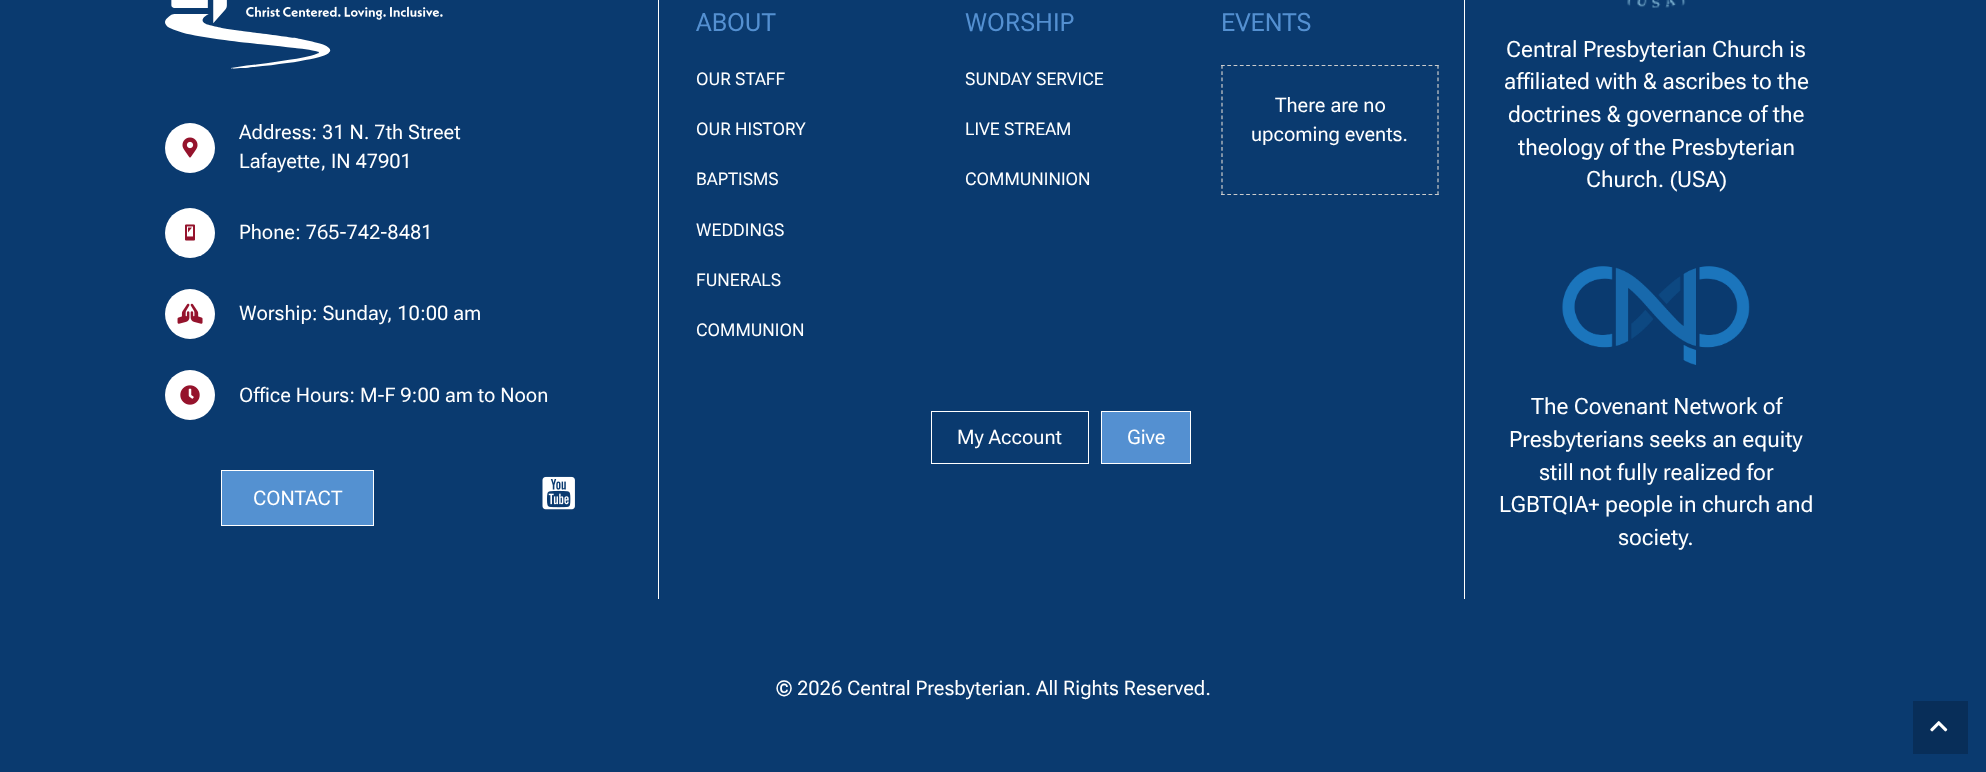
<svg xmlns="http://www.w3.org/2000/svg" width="1986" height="772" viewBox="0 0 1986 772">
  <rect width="100%" height="100%" fill="#0a3a6f"/>
  <image x="165" y="0" width="278" height="69" href="img1.png"/>
  <circle cx="190" cy="148" r="25" fill="#ffffff"/>
  <image x="182" y="137" width="16" height="21" href="img2.png"/>
  <text x="239" y="139" font-family="Roboto Flex" font-size="20" fill="#ffffff">Address: 31 N. 7th Street</text>
  <text x="239" y="168" font-family="Roboto Flex" font-size="20" fill="#ffffff">Lafayette, IN 47901</text>
  <circle cx="190" cy="233" r="25" fill="#ffffff"/>
  <image x="185" y="224" width="10" height="17" href="img3.png"/>
  <text x="239" y="239" font-family="Roboto Flex" font-size="20" fill="#ffffff">Phone: 765-742-8481</text>
  <circle cx="190" cy="314" r="25" fill="#ffffff"/>
  <image x="177" y="303" width="26" height="21" href="img4.png"/>
  <text x="239" y="320" font-family="Roboto Flex" font-size="20" fill="#ffffff">Worship: Sunday, 10:00 am</text>
  <circle cx="190" cy="395" r="25" fill="#ffffff"/>
  <image x="180" y="385" width="20" height="20" href="img5.png"/>
  <text x="239" y="402" font-family="Roboto Flex" font-size="20" fill="#ffffff">Office Hours: M-F 9:00 am to Noon</text>
  <rect x="221.5" y="470.5" width="152" height="55" fill="#5491d1" stroke="#ffffff"/>
  <text x="253" y="505" font-family="Roboto Flex" font-size="20" fill="#ffffff">CONTACT</text>
  <image x="542" y="476" width="33" height="34" href="img6.png"/>
  <rect x="1464" y="0" width="1" height="599" fill="#ffffff"/>
  <rect x="658" y="0" width="1" height="599" fill="#ffffff"/>
  <text x="696" y="31" font-family="Roboto Flex" font-size="25" fill="#5490d1">ABOUT</text>
  <text x="696" y="85" font-family="Roboto Flex" font-size="17.5" fill="#ffffff">OUR STAFF</text>
  <text x="696" y="135" font-family="Roboto Flex" font-size="17.5" fill="#ffffff">OUR HISTORY</text>
  <text x="696" y="185" font-family="Roboto Flex" font-size="17.5" fill="#ffffff">BAPTISMS</text>
  <text x="696" y="236" font-family="Roboto Flex" font-size="17.5" fill="#ffffff">WEDDINGS</text>
  <text x="696" y="286" font-family="Roboto Flex" font-size="17.5" fill="#ffffff">FUNERALS</text>
  <text x="696" y="336" font-family="Roboto Flex" font-size="17.5" fill="#ffffff">COMMUNION</text>
  <text x="965" y="31" font-family="Roboto Flex" font-size="25" fill="#5490d1">WORSHIP</text>
  <text x="965" y="85" font-family="Roboto Flex" font-size="17.5" fill="#ffffff">SUNDAY SERVICE</text>
  <text x="965" y="135" font-family="Roboto Flex" font-size="17.5" fill="#ffffff">LIVE STREAM</text>
  <text x="965" y="185" font-family="Roboto Flex" font-size="17.5" fill="#ffffff">COMMUNINION</text>
  <text x="1221" y="31" font-family="Roboto Flex" font-size="25" fill="#5490d1">EVENTS</text>
  <path d="M1221 65.5H1439" fill="none" stroke="#cccccc" stroke-width="1.2" stroke-dasharray="3.75 2.54"/>
  <path d="M1438 65V195" fill="none" stroke="#cccccc" stroke-width="1.2" stroke-dasharray="3.75 2.56"/>
  <path d="M1221 194.5H1439" fill="none" stroke="#cccccc" stroke-width="1.2" stroke-dasharray="3.75 2.54"/>
  <path d="M1222 65V195" fill="none" stroke="#cccccc" stroke-width="1.2" stroke-dasharray="3.75 2.56"/>
  <text x="1275" y="112" font-family="Roboto Flex" font-size="20" fill="#ffffff">There are no</text>
  <text x="1251" y="141" font-family="Roboto Flex" font-size="20" fill="#ffffff">upcoming events.</text>
  <rect x="931.5" y="411.5" width="157" height="52" fill="none" stroke="#ffffff"/>
  <text x="957" y="444" font-family="Roboto Flex" font-size="20" fill="#ffffff">My Account</text>
  <rect x="1101.5" y="411.5" width="89" height="52" fill="#5490d1" stroke="#ffffff"/>
  <text x="1127" y="444" font-family="Roboto Flex" font-size="20" fill="#ffffff">Give</text>
  <image x="1627" y="0" width="59" height="8" href="img7.png"/>
  <text x="1506" y="57" font-family="Roboto Flex" font-size="22.5" fill="#ffffff">Central Presbyterian Church is</text>
  <text x="1504" y="89" font-family="Roboto Flex" font-size="22.5" fill="#ffffff">affiliated with &amp; ascribes to the</text>
  <text x="1508" y="122" font-family="Roboto Flex" font-size="22.5" fill="#ffffff">doctrines &amp; governance of the</text>
  <text x="1518" y="155" font-family="Roboto Flex" font-size="22.5" fill="#ffffff">theology of the Presbyterian</text>
  <text x="1586" y="187" font-family="Roboto Flex" font-size="22.5" fill="#ffffff">Church. (USA)</text>
  <image x="1562" y="266" width="188" height="99" href="img8.png"/>
  <text x="1531" y="414" font-family="Roboto Flex" font-size="22.5" fill="#ffffff">The Covenant Network of</text>
  <text x="1509" y="447" font-family="Roboto Flex" font-size="22.5" fill="#ffffff">Presbyterians seeks an equity</text>
  <text x="1539" y="480" font-family="Roboto Flex" font-size="22.5" fill="#ffffff">still not fully realized for</text>
  <text x="1499" y="512" font-family="Roboto Flex" font-size="22.5" fill="#ffffff">LGBTQIA+ people in church and</text>
  <text x="1618" y="545" font-family="Roboto Flex" font-size="22.5" fill="#ffffff">society.</text>
  <text x="776" y="695" font-family="Roboto Flex" font-size="20" fill="#ffffff">© 2026 Central Presbyterian. All Rights Reserved.</text>
  <rect x="1913" y="701" width="55" height="53" fill="#082e59"/>
  <image x="1930" y="721" width="18" height="11" href="img9.png"/>
</svg>
